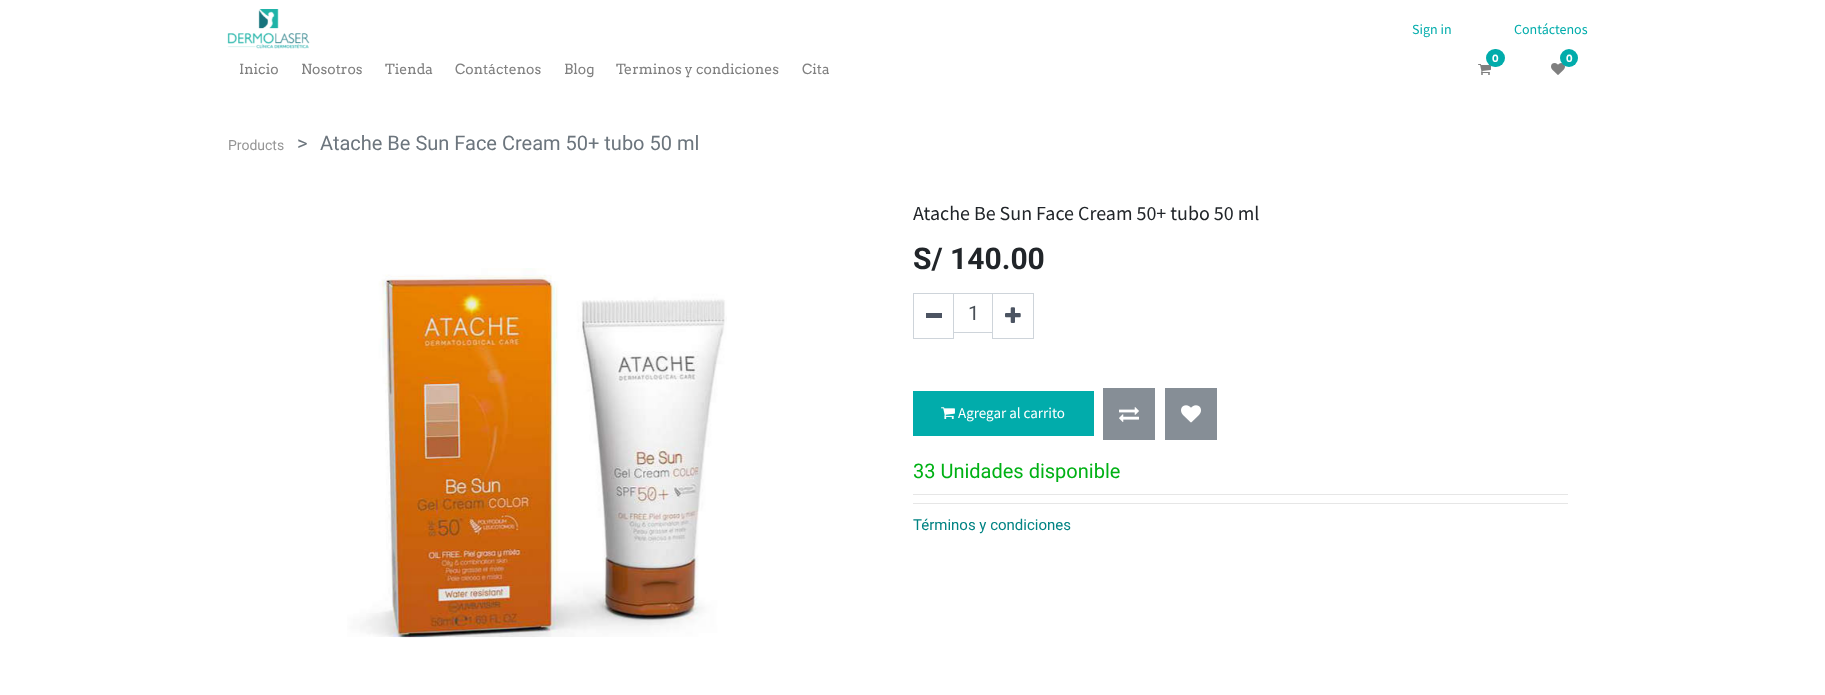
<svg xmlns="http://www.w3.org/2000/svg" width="1825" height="695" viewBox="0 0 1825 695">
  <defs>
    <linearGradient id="g1" gradientUnits="userSpaceOnUse" x1="913" y1="414" x2="1456" y2="414"><stop offset="0" stop-color="#01acab"/><stop offset="0.33" stop-color="#01acab"/><stop offset="0.67" stop-color="#303030"/><stop offset="1" stop-color="#303030"/></linearGradient>
  </defs>
  <rect width="100%" height="100%" fill="#ffffff"/>
  <image x="227" y="9" width="83" height="40" href="img1.png"/>
  <text x="1412" y="34" font-family="Source Sans Pro" font-size="14" fill="#01acab">Sign in</text>
  <text x="1514" y="34" font-family="Source Sans Pro" font-size="14" fill="#01acab">Contáctenos</text>
  <image x="1478" y="64" width="13" height="11" href="img2.png"/>
  <rect x="1486" y="49" width="19" height="18" rx="9" fill="#01acab"/>
  <text x="1492" y="62" font-family="Arvo" font-size="10" font-weight="bold" fill="#ffffff">0</text>
  <image x="1551" y="63" width="14" height="12" href="img3.png"/>
  <circle cx="1569" cy="58" r="9" fill="#01acab"/>
  <text x="1566" y="62" font-family="Arvo" font-size="10" font-weight="bold" fill="#ffffff">0</text>
  <text x="239" y="74" font-family="Arvo" font-size="14" fill="#808080">Inicio</text>
  <text x="301" y="74" font-family="Arvo" font-size="14" fill="#808080">Nosotros</text>
  <text x="385" y="74" font-family="Arvo" font-size="14" fill="#808080">Tienda</text>
  <text x="455" y="74" font-family="Arvo" font-size="14" fill="#808080">Contáctenos</text>
  <text x="564" y="74" font-family="Arvo" font-size="14" fill="#808080">Blog</text>
  <text x="616" y="74" font-family="Arvo" font-size="14" fill="#808080">Terminos y condiciones</text>
  <text x="802" y="74" font-family="Arvo" font-size="14" fill="#808080">Cita</text>
  <text x="228" y="150" font-family="Roboto" font-size="14" fill="#969696">Products</text>
  <text x="297" y="150" font-family="Roboto" font-size="20" fill="#6c757d">&gt;</text>
  <text x="320" y="150" font-family="Roboto" font-size="20" fill="#6c757d">Atache Be Sun Face Cream 50+ tubo 50 ml</text>
  <image x="347" y="268" width="380" height="370" href="img4.png"/>
  <text x="913" y="220" font-family="Source Sans Pro" font-size="20" fill="#212529">Atache Be Sun Face Cream 50+ tubo 50 ml</text>
  <text x="913" y="269" font-family="Roboto" font-size="30" font-weight="bold" fill="#212529">S/ 140.00</text>
  <rect x="913.5" y="293.5" width="40" height="45" fill="none" stroke="#ced4da"/>
  <rect x="926" y="313" width="16" height="5" fill="#4c5462"/>
  <rect x="953.5" y="293.5" width="39" height="39" fill="none" stroke="#ced4da"/>
  <text x="968" y="320" font-family="Roboto" font-size="20" fill="#495057">1</text>
  <rect x="992.5" y="293.5" width="41" height="45" fill="none" stroke="#ced4da"/>
  <image x="1005" y="307" width="16" height="16" href="img5.png"/>
  <rect x="913" y="391" width="181" height="45" fill="url(#g1)"/>
  <image x="941" y="407" width="14" height="13" href="img6.png"/>
  <text x="958" y="418" font-family="Source Sans Pro" font-size="15" fill="#ffffff">Agregar al carrito</text>
  <rect x="1103" y="388" width="52" height="52" fill="#868e96"/>
  <image x="1119" y="407" width="20" height="15" href="img7.png"/>
  <rect x="1165" y="388" width="52" height="52" fill="#868e96"/>
  <image x="1181" y="405" width="20" height="18" href="img8.png"/>
  <text x="913" y="478" font-family="Roboto" font-size="20" fill="#00b115">33 Unidades disponible</text>
  <rect x="913" y="494" width="655" height="1" fill="#e6e6e6"/>
  <rect x="913" y="503" width="655" height="1" fill="#e6e6e6"/>
  <text x="913" y="530" font-family="Roboto" font-size="15" fill="#018383">Términos y condiciones</text>
</svg>
